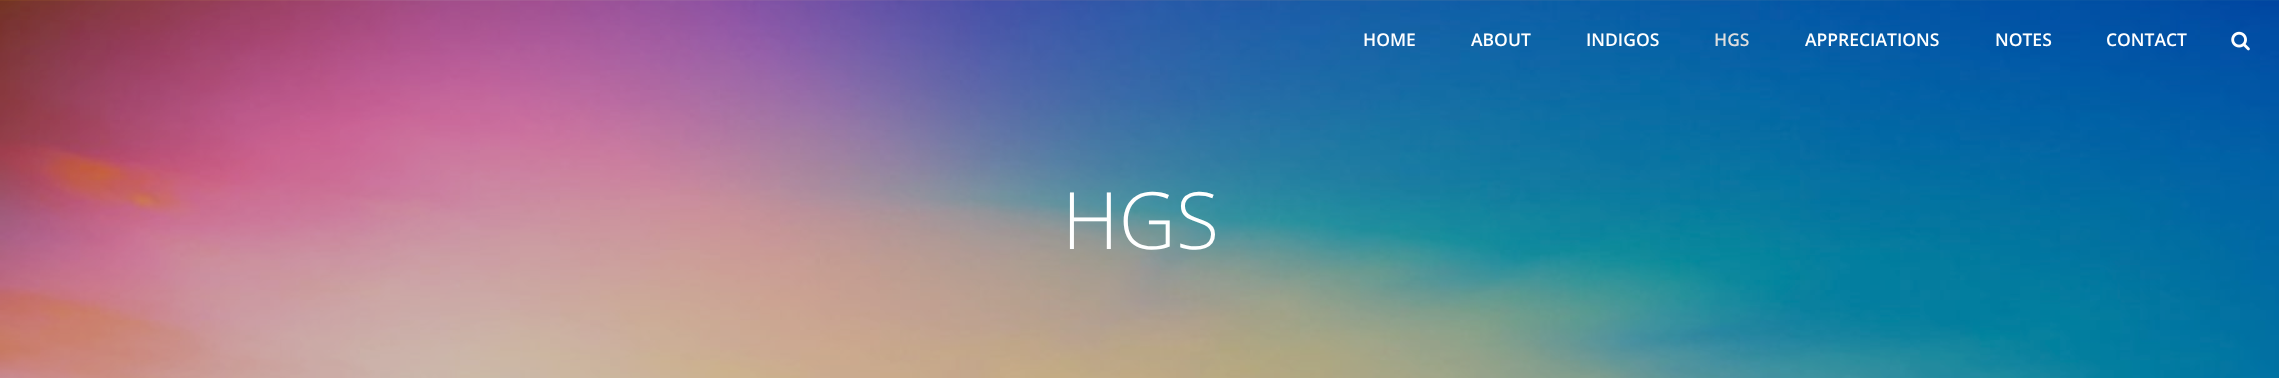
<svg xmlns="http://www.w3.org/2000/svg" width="2279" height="378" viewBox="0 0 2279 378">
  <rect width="100%" height="100%" fill="#ffffff"/>
  <image x="0" y="0" width="2279" height="378" href="img1.png"/>
  <text x="1363" y="46" font-family="Open Sans" font-size="17.5" font-weight="600" fill="#ffffff">HOME</text>
  <text x="1471" y="46" font-family="Open Sans" font-size="17.5" font-weight="600" fill="#ffffff">ABOUT</text>
  <text x="1586" y="46" font-family="Open Sans" font-size="17.5" font-weight="600" fill="#ffffff">INDIGOS</text>
  <text x="1714" y="46" font-family="Open Sans" font-size="17.5" font-weight="600" fill="#dedede">HGS</text>
  <text x="1805" y="46" font-family="Open Sans" font-size="17.5" font-weight="600" fill="#ffffff">APPRECIATIONS</text>
  <text x="1995" y="46" font-family="Open Sans" font-size="17.5" font-weight="600" fill="#ffffff">NOTES</text>
  <text x="2106" y="46" font-family="Open Sans" font-size="17.5" font-weight="600" fill="#ffffff">CONTACT</text>
  <image x="2231" y="31" width="19" height="20" href="img2.png"/>
  <text x="1062" y="249" font-family="Open Sans" font-size="79" font-weight="300" fill="#ffffff">HGS</text>
</svg>
